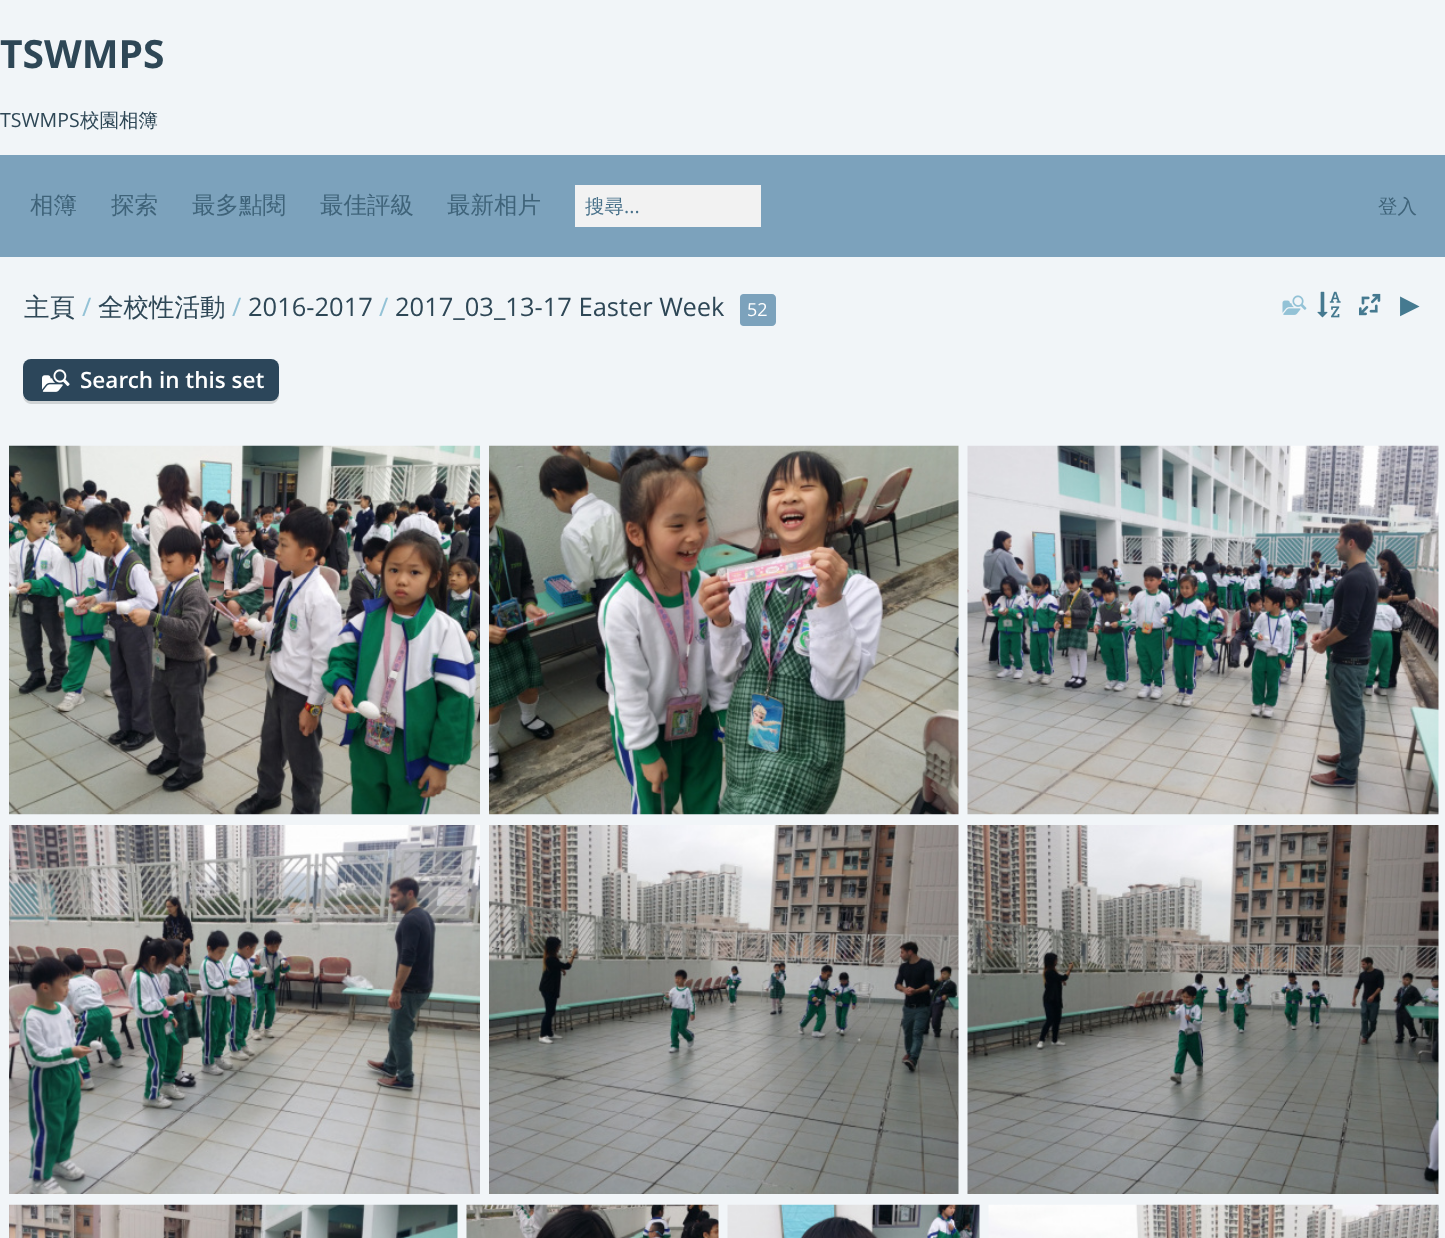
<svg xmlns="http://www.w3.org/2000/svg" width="1445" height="1238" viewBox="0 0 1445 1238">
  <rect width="100%" height="100%" fill="#f1f5f8"/>
  <text x="0" y="68" font-family="Open Sans" font-size="39" font-weight="bold" fill="#2e4756">TSWMPS</text>
  <text x="0" y="127" font-family="Open Sans" font-size="19.5" fill="#2e4756">TSWMPS</text>
  <text x="80" y="127" font-family="WenQuanYi Zen Hei" font-size="19.5" font-weight="500" fill="#2e4756">校園相簿</text>
  <rect x="0" y="155" width="1445" height="102" fill="#7ca2bc"/>
  <text x="30" y="213" font-family="WenQuanYi Zen Hei" font-size="23.5" font-weight="500" fill="#3f6379">相簿</text>
  <text x="111" y="213" font-family="WenQuanYi Zen Hei" font-size="23.5" font-weight="500" fill="#3f6379">探索</text>
  <text x="192" y="213" font-family="WenQuanYi Zen Hei" font-size="23.5" font-weight="500" fill="#3f6379">最多點閱</text>
  <text x="320" y="213" font-family="WenQuanYi Zen Hei" font-size="23.5" font-weight="500" fill="#3f6379">最佳評級</text>
  <text x="447" y="213" font-family="WenQuanYi Zen Hei" font-size="23.5" font-weight="500" fill="#3f6379">最新相片</text>
  <rect x="575" y="185" width="186" height="42" fill="#f2f2f2"/>
  <text x="585" y="213" font-family="WenQuanYi Zen Hei" font-size="19.5" font-weight="500" fill="#48718a">搜尋</text>
  <text x="624" y="213" font-family="Open Sans" font-size="19.5" fill="#48718a">...</text>
  <text x="1378" y="213" font-family="WenQuanYi Zen Hei" font-size="19.5" font-weight="500" fill="#3f6379">登入</text>
  <text x="24" y="316" font-family="WenQuanYi Zen Hei" font-size="25.5" font-weight="500" fill="#2e4756">主頁</text>
  <text x="82" y="316" font-family="Open Sans" font-size="25.5" fill="#93c2d6">/</text>
  <text x="98" y="316" font-family="WenQuanYi Zen Hei" font-size="25.5" font-weight="500" fill="#2e4756">全校性活動</text>
  <text x="232" y="316" font-family="Open Sans" font-size="25.5" fill="#93c2d6">/</text>
  <text x="248" y="316" font-family="Open Sans" font-size="25.5" fill="#2e4756">2016-2017</text>
  <text x="379" y="316" font-family="Open Sans" font-size="25.5" fill="#93c2d6">/</text>
  <text x="395" y="316" font-family="Open Sans" font-size="25.5" fill="#2e4756">2017_03_13-17 Easter Week</text>
  <rect x="747" y="294" width="21" height="32" fill="#7ca2bc"/>
  <text x="747" y="316" font-family="Open Sans" font-size="18" fill="#ffffff">52</text>
  <path d="M743.5 294H747V326H743.5C741.5 326 740 324.5 740 322.5V297.5C740 295.5 741.5 294 743.5 294Z" fill="#7ca2bc"/>
  <path d="M768 294H772C774 294 776 296 776 298V322C776 324 774 326 772 326H768Z" fill="#7ca2bc"/>
  <image x="1282" y="295" width="25" height="20" href="img1.png"/>
  <image x="1317" y="291" width="24" height="27" href="img2.png"/>
  <image x="1359" y="293" width="22" height="23" href="img3.png"/>
  <text x="1400" y="313" font-family="DejaVu Sans" font-size="25.5" fill="#457a90">▶</text>
  <path d="M23 396C23 400 27 404 31 404H271C275 404 279 400 279 396V393C279 397 276 400 272 400H30C27 400 24 399 23 396Z" fill="#cfd3d5"/>
  <rect x="23" y="359" width="256" height="42" rx="8" fill="#2c465a"/>
  <image x="42" y="369" width="28" height="23" href="img4.png"/>
  <text x="80" y="388" font-family="Open Sans" font-size="22.5" font-weight="600" fill="#ffffff">Search in this set</text>
  <image x="9" y="445" width="471" height="370" href="img5.png"/>
  <image x="489" y="445" width="470" height="370" href="img6.png"/>
  <image x="967" y="445" width="472" height="370" href="img7.png"/>
  <image x="9" y="825" width="471" height="369" href="img8.png"/>
  <image x="489" y="825" width="470" height="369" href="img9.png"/>
  <image x="967" y="825" width="472" height="369" href="img10.png"/>
  <image x="9" y="1204" width="449" height="34" href="img11.png"/>
  <image x="466" y="1204" width="253" height="34" href="img12.png"/>
  <image x="727" y="1204" width="253" height="34" href="img13.png"/>
  <image x="988" y="1204" width="451" height="34" href="img14.png"/>
</svg>
